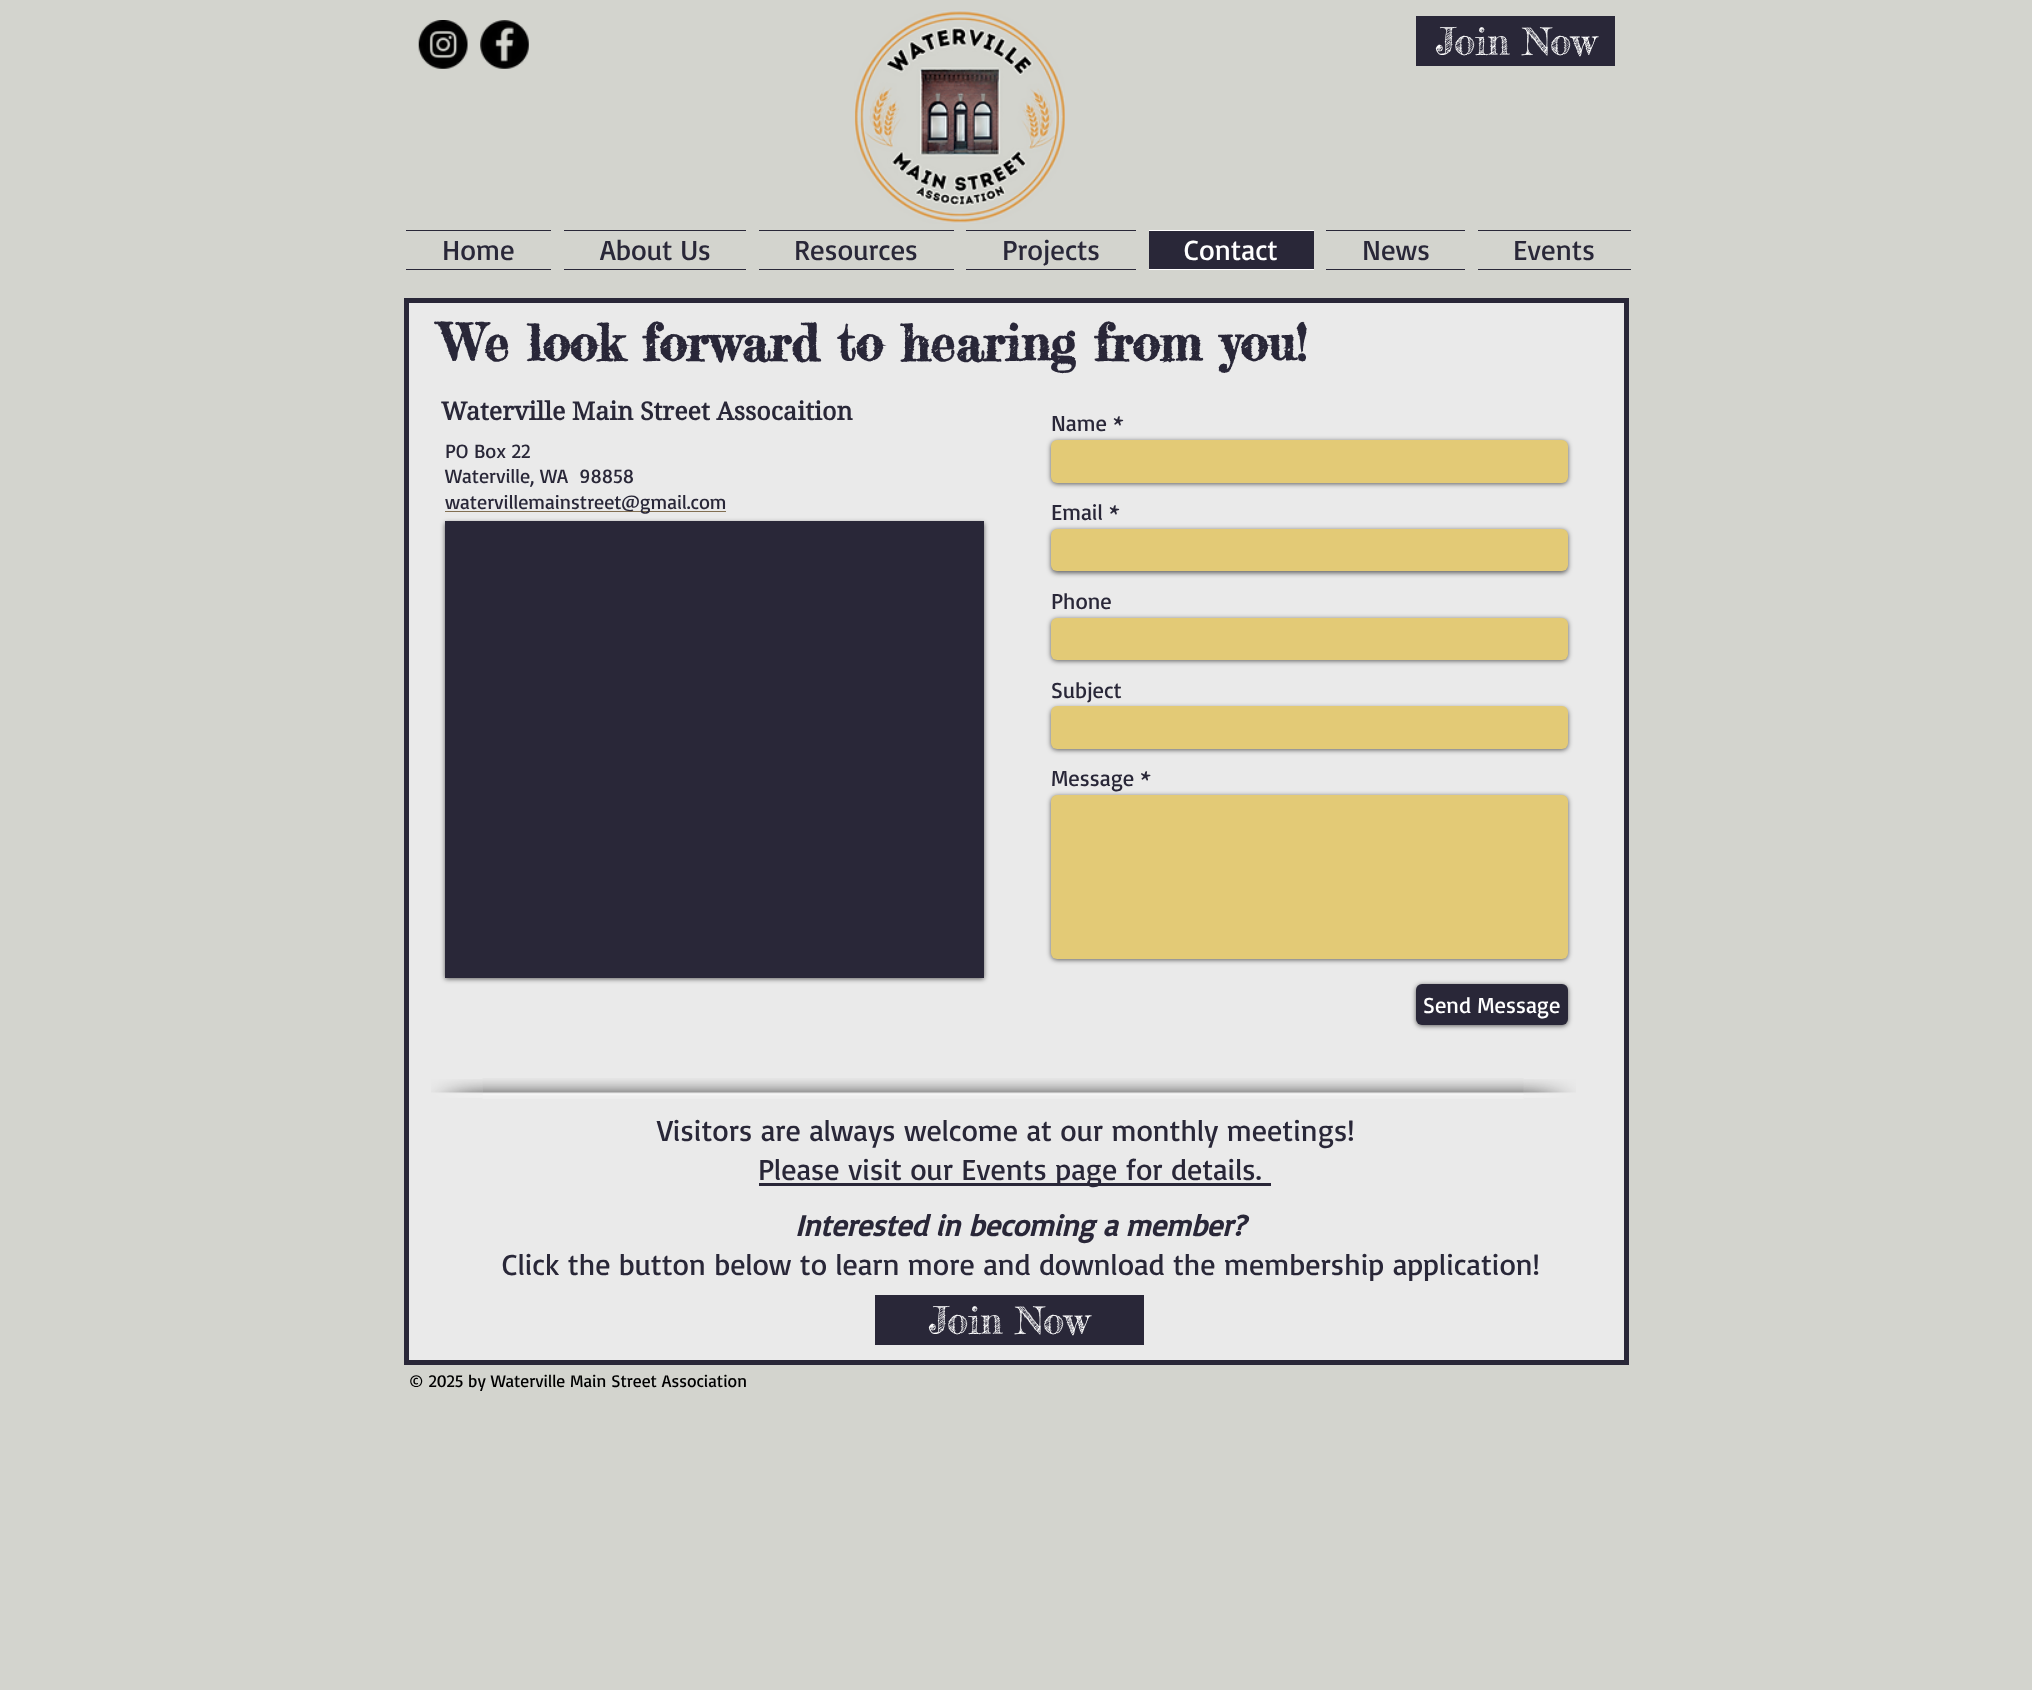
<svg xmlns="http://www.w3.org/2000/svg" width="2032" height="1690" viewBox="0 0 2032 1690">
  <defs>
    <filter id="blur1" x="-50%" y="-200%" width="200%" height="500%"><feGaussianBlur stdDeviation="2.5"/></filter>
  </defs>
  <rect width="100%" height="100%" fill="#d3d4ce"/>
  <image x="418" y="20" width="50" height="49" href="img1.png"/>
  <image x="480" y="20" width="49" height="49" href="img2.png"/>
  <image x="854" y="10" width="211" height="214" href="img3.png"/>
  <rect x="1416" y="16" width="199" height="50" fill="#292738"/>
  <text x="1436" y="55" font-family="Fredericka the Great" font-size="37.5" fill="#ffffff">Join Now</text>
  <rect x="406" y="230" width="145" height="1" fill="#292738"/>
  <rect x="406" y="269" width="145" height="1" fill="#292738"/>
  <text x="442" y="260" font-family="Basic" font-size="28.75" fill="#292738">Home</text>
  <rect x="564" y="230" width="182" height="1" fill="#292738"/>
  <rect x="564" y="269" width="182" height="1" fill="#292738"/>
  <text x="600" y="260" font-family="Basic" font-size="28.75" fill="#292738">About Us</text>
  <rect x="759" y="230" width="195" height="1" fill="#292738"/>
  <rect x="759" y="269" width="195" height="1" fill="#292738"/>
  <text x="794" y="260" font-family="Basic" font-size="28.75" fill="#292738">Resources</text>
  <rect x="966" y="230" width="170" height="1" fill="#292738"/>
  <rect x="966" y="269" width="170" height="1" fill="#292738"/>
  <text x="1002" y="260" font-family="Basic" font-size="28.75" fill="#292738">Projects</text>
  <rect x="1149" y="231" width="165" height="38" fill="#292738"/>
  <rect x="1149" y="230" width="165" height="1" fill="#ffffff"/>
  <rect x="1149" y="269" width="165" height="1" fill="#ffffff"/>
  <text x="1184" y="260" font-family="Basic" font-size="28.75" fill="#ffffff">Contact</text>
  <rect x="1326" y="230" width="139" height="1" fill="#292738"/>
  <rect x="1326" y="269" width="139" height="1" fill="#292738"/>
  <text x="1362" y="260" font-family="Basic" font-size="28.75" fill="#292738">News</text>
  <rect x="1478" y="230" width="153" height="1" fill="#292738"/>
  <rect x="1478" y="269" width="153" height="1" fill="#292738"/>
  <text x="1513" y="260" font-family="Basic" font-size="28.75" fill="#292738">Events</text>
  <rect x="406.5" y="300.5" width="1220" height="1062" fill="#eaeaea" stroke="#292738" stroke-width="5"/>
  <text x="440" y="361" font-family="Fredericka the Great" font-size="50" font-weight="bold" fill="#292738">We look forward to hearing from you!</text>
  <text x="441" y="420" font-family="'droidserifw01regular'" font-size="25" font-weight="bold" fill="#292738">Waterville Main Street Assocaition</text>
  <text x="445" y="458" font-family="Basic" font-size="20" fill="#292738">PO Box 22</text>
  <text x="445" y="483" font-family="Basic" font-size="20" fill="#292738" xml:space="preserve">Waterville, WA  98858</text>
  <rect x="445" y="511" width="281" height="1" fill="#826f52"/>
  <text x="445" y="509" font-family="Basic" font-size="20" fill="#292738">watervillemainstreet@gmail.com</text>
  <text x="1051" y="431" font-family="Basic" font-size="22.5" fill="#292738">Name *</text>
  <rect x="1051" y="441" width="517" height="43" rx="6" fill="#000000" fill-opacity="0.6" filter="url(#blur1)"/>
  <rect x="1051" y="440" width="517" height="43" rx="6" fill="#e3ca76"/>
  <text x="1051" y="520" font-family="Basic" font-size="22.5" fill="#292738">Email *</text>
  <rect x="1051" y="530" width="517" height="43" rx="6" fill="#000000" fill-opacity="0.6" filter="url(#blur1)"/>
  <rect x="1051" y="529" width="517" height="42" rx="6" fill="#e3ca76"/>
  <text x="1051" y="609" font-family="Basic" font-size="22.5" fill="#292738">Phone</text>
  <rect x="1051" y="619" width="517" height="42" rx="6" fill="#000000" fill-opacity="0.6" filter="url(#blur1)"/>
  <rect x="1051" y="618" width="517" height="42" rx="6" fill="#e3ca76"/>
  <text x="1051" y="698" font-family="Basic" font-size="22.5" fill="#292738">Subject</text>
  <rect x="1051" y="708" width="517" height="42" rx="6" fill="#000000" fill-opacity="0.6" filter="url(#blur1)"/>
  <rect x="1051" y="706" width="517" height="43" rx="6" fill="#e3ca76"/>
  <text x="1051" y="786" font-family="Basic" font-size="22.5" fill="#292738">Message *</text>
  <rect x="1051" y="796" width="517" height="164" rx="6" fill="#000000" fill-opacity="0.6" filter="url(#blur1)"/>
  <rect x="1051" y="795" width="517" height="164" rx="6" fill="#e3ca76"/>
  <rect x="1416" y="985" width="152" height="41" rx="6" fill="#000000" fill-opacity="0.6" filter="url(#blur1)"/>
  <rect x="1416" y="984" width="152" height="41" rx="6" fill="#292738"/>
  <text x="1423" y="1013" font-family="Basic" font-size="22.5" fill="#ffffff">Send Message</text>
  <rect x="445" y="523" width="539" height="456" fill="#000000" fill-opacity="0.6" filter="url(#blur1)"/>
  <rect x="445" y="521" width="539" height="457" fill="#292738"/>
  <image x="482" y="1078" width="1042" height="21" href="img4.png"/>
  <image x="431" y="1079" width="52" height="19" href="img5.png"/>
  <image x="1523" y="1079" width="53" height="19" href="img6.png"/>
  <text x="657" y="1141" font-family="Basic" font-size="30" fill="#292738">Visitors are always welcome at our monthly meetings!</text>
  <rect x="759" y="1183" width="512" height="3" fill="#292738"/>
  <text x="758" y="1180" font-family="Basic" font-size="30" fill="#292738">Please visit our Events page for details.</text>
  <text x="795" y="1236" font-family="Basic" font-size="30" font-weight="bold" font-style="italic" fill="#292738">Interested in becoming a member?</text>
  <text x="502" y="1275" font-family="Basic" font-size="30" fill="#292738">Click the button below to learn more and download the membership application!</text>
  <rect x="875" y="1295" width="269" height="50" fill="#292738"/>
  <text x="929" y="1334" font-family="Fredericka the Great" font-size="37.5" fill="#ffffff">Join Now</text>
  <text x="409" y="1387" font-family="Basic" font-size="17.5" fill="#000000">© 2025 by Waterville Main Street Association</text>
</svg>
